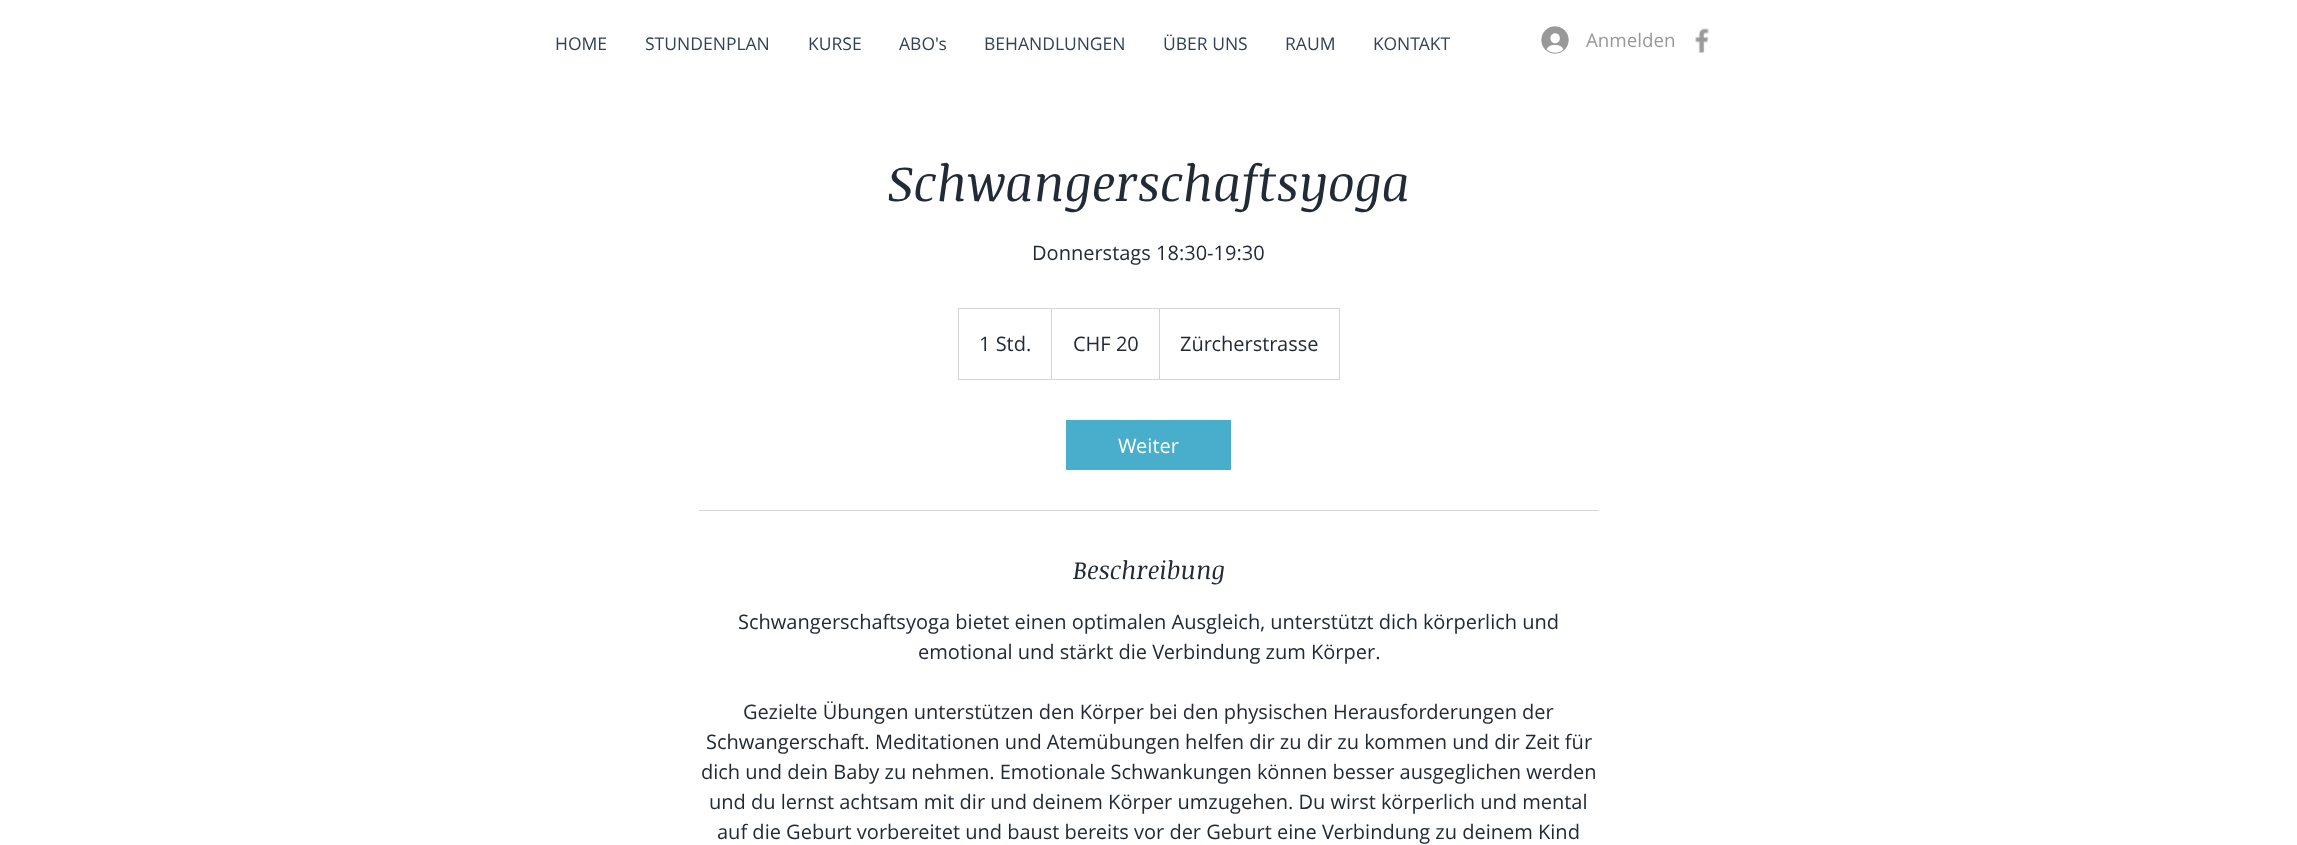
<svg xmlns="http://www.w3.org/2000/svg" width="2297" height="845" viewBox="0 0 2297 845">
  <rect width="100%" height="100%" fill="#ffffff"/>
  <text x="555" y="50" font-family="Open Sans" font-size="17.5" fill="#324157">HOME</text>
  <text x="645" y="50" font-family="Open Sans" font-size="17.5" fill="#324157">STUNDENPLAN</text>
  <text x="808" y="50" font-family="Open Sans" font-size="17.5" fill="#324157">KURSE</text>
  <text x="899" y="50" font-family="Open Sans" font-size="17.5" fill="#324157">ABO's</text>
  <text x="984" y="50" font-family="Open Sans" font-size="17.5" fill="#324157">BEHANDLUNGEN</text>
  <text x="1163" y="50" font-family="Open Sans" font-size="17.5" fill="#324157">ÜBER UNS</text>
  <text x="1285" y="50" font-family="Open Sans" font-size="17.5" fill="#324157">RAUM</text>
  <text x="1373" y="50" font-family="Open Sans" font-size="17.5" fill="#324157">KONTAKT</text>
  <image x="1541" y="26" width="28" height="28" href="img1.png"/>
  <text x="1586" y="47" font-family="Open Sans" font-size="18.75" fill="#999999">Anmelden</text>
  <image x="1695" y="28" width="14" height="25" href="img2.png"/>
  <text x="888" y="201" font-family="Noticia Text" font-size="50" font-style="italic" fill="#222a36">Schwangerschaftsyoga</text>
  <text x="1032" y="260" font-family="Open Sans" font-size="20" fill="#222a36">Donnerstags 18:30-19:30</text>
  <rect x="958.5" y="308.5" width="381" height="71" fill="none" stroke="#d3d4d7"/>
  <text x="979" y="351" font-family="Open Sans" font-size="20" fill="#222a36">1 Std.</text>
  <path d="M1051 379V308L1052 309V379Z" fill="#d3d4d7"/>
  <text x="1073" y="351" font-family="Open Sans" font-size="20" fill="#222a36">CHF 20</text>
  <path d="M1159 379V308L1160 309V379Z" fill="#d3d4d7"/>
  <text x="1180" y="351" font-family="Open Sans" font-size="20" fill="#222a36">Zürcherstrasse</text>
  <rect x="1066" y="420" width="165" height="50" fill="#48aecb"/>
  <text x="1118" y="453" font-family="Open Sans" font-size="20" fill="#ffffff">Weiter</text>
  <rect x="699" y="510" width="900" height="1" fill="#d3d4d7"/>
  <text x="1073" y="579" font-family="Noticia Text" font-size="25" font-style="italic" fill="#222a36">Beschreibung</text>
  <text x="738" y="629" font-family="Open Sans" font-size="20" fill="#222a36">Schwangerschaftsyoga bietet einen optimalen Ausgleich, unterstützt dich körperlich und</text>
  <text x="918" y="659" font-family="Open Sans" font-size="20" fill="#222a36">emotional und stärkt die Verbindung zum Körper.</text>
  <text x="743" y="719" font-family="Open Sans" font-size="20" fill="#222a36">Gezielte Übungen unterstützen den Körper bei den physischen Herausforderungen der</text>
  <text x="706" y="749" font-family="Open Sans" font-size="20" fill="#222a36">Schwangerschaft. Meditationen und Atemübungen helfen dir zu dir zu kommen und dir Zeit für</text>
  <text x="701" y="779" font-family="Open Sans" font-size="20" fill="#222a36">dich und dein Baby zu nehmen. Emotionale Schwankungen können besser ausgeglichen werden</text>
  <text x="709" y="809" font-family="Open Sans" font-size="20" fill="#222a36">und du lernst achtsam mit dir und deinem Körper umzugehen. Du wirst körperlich und mental</text>
  <text x="717" y="839" font-family="Open Sans" font-size="20" fill="#222a36">auf die Geburt vorbereitet und baust bereits vor der Geburt eine Verbindung zu deinem Kind</text>
</svg>
